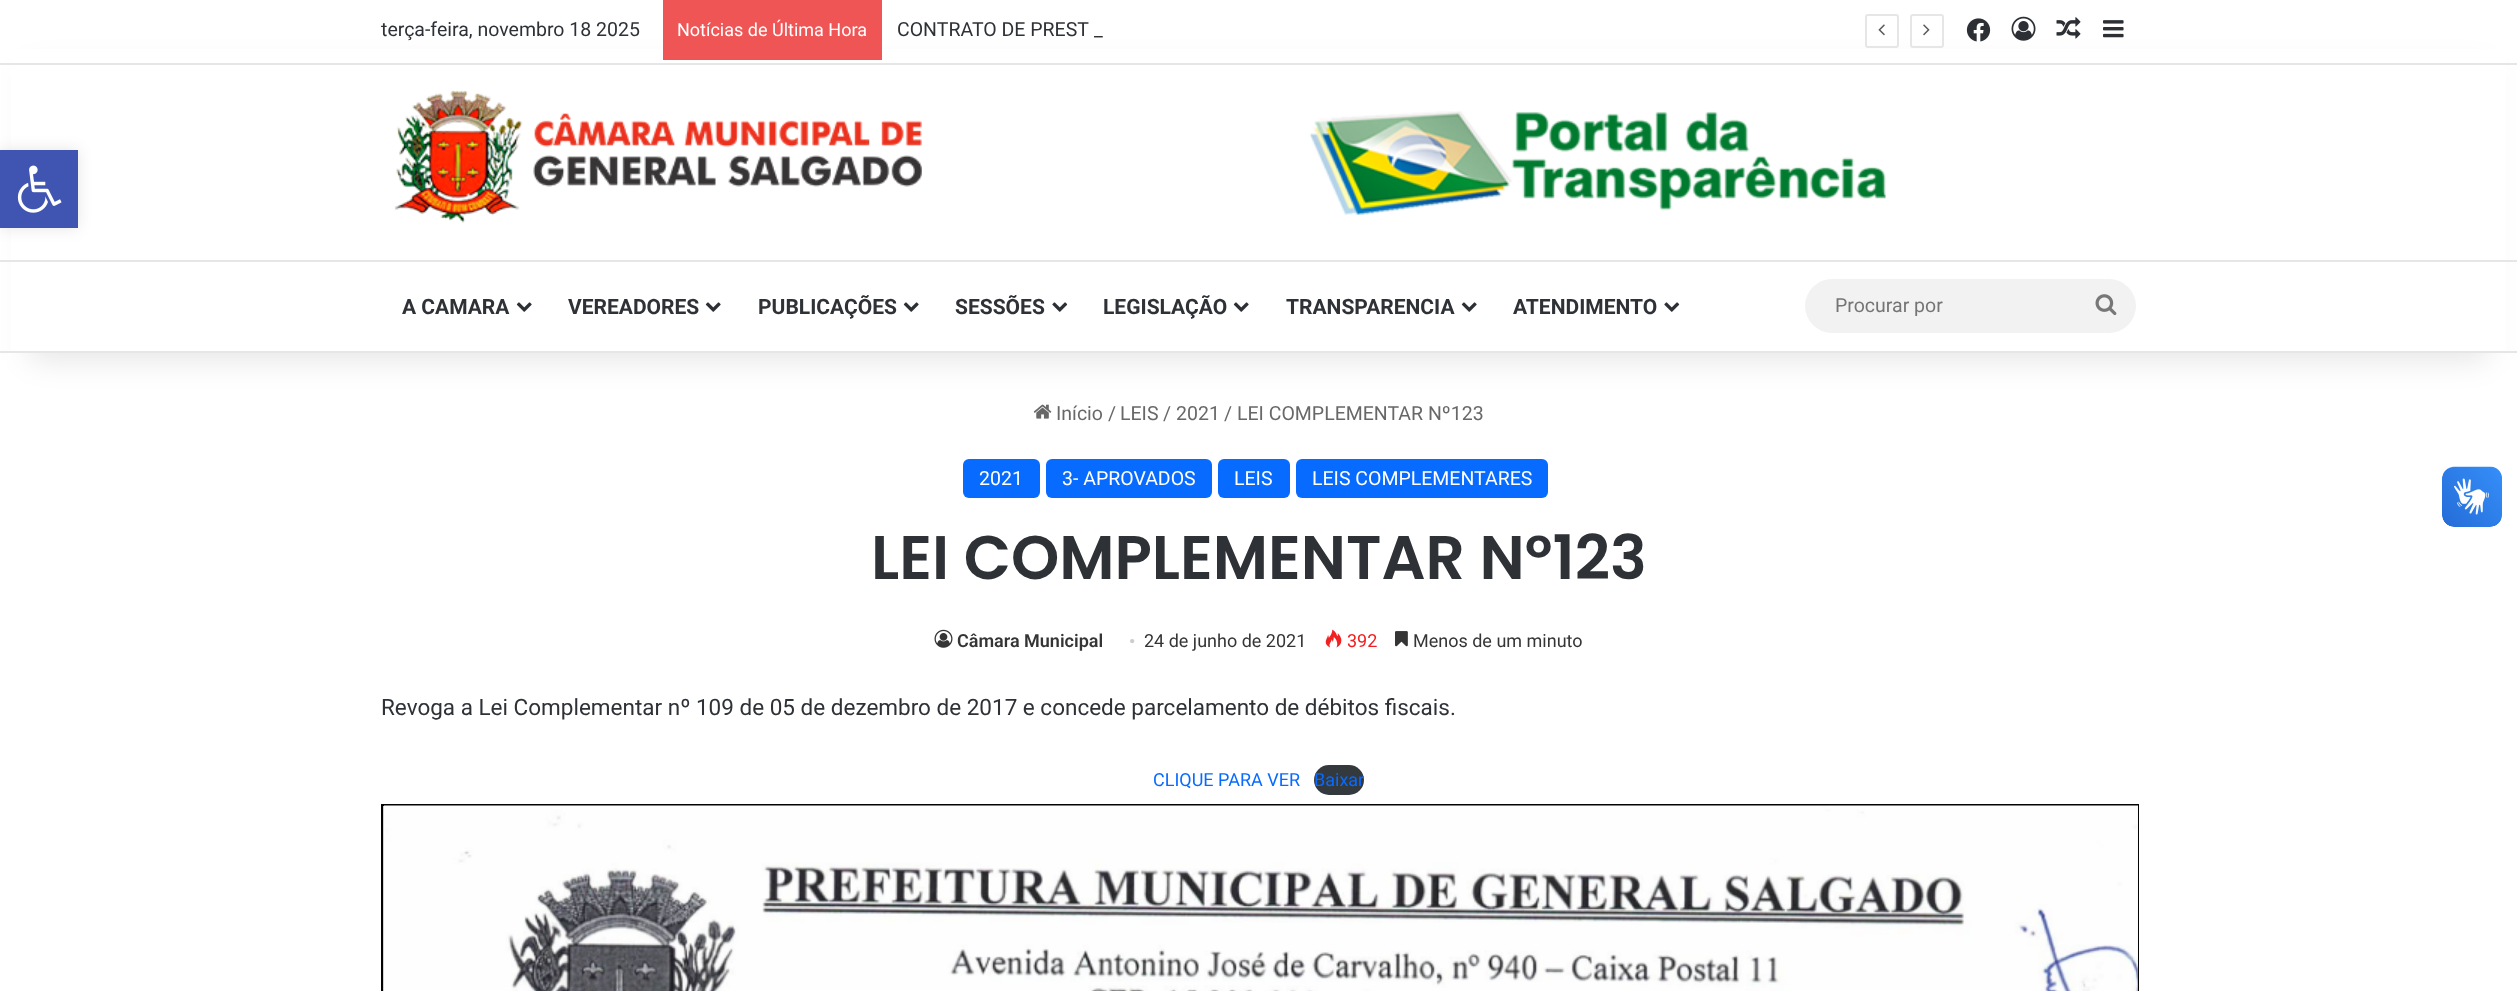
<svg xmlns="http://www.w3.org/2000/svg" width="2517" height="991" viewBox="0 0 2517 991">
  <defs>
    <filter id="blur1" x="-50%" y="-200%" width="200%" height="500%"><feGaussianBlur stdDeviation="15"/></filter>
    <filter id="blur2" x="-50%" y="-200%" width="200%" height="500%"><feGaussianBlur stdDeviation="7.5"/></filter>
  </defs>
  <rect width="100%" height="100%" fill="#ffffff"/>
  <image x="1033" y="404" width="19" height="15" href="img13.png"/>
  <rect x="30" y="68" width="2457" height="292" fill="#000000" fill-opacity="0.1" filter="url(#blur1)"/>
  <rect x="11" y="49" width="2495" height="302" fill="#ffffff"/>
  <rect x="0" y="150" width="78" height="78" fill="#000000" fill-opacity="0.1" filter="url(#blur2)"/>
  <rect x="0" y="150" width="78" height="78" fill="#4054b2"/>
  <image x="17" y="165" width="45" height="48" href="img1.png"/>
  <rect x="0" y="63" width="2517" height="2" fill="#e6e6e6"/>
  <text x="381" y="36" font-family="Roboto" font-size="19.5" fill="#2e3136">terça-feira, novembro 18 2025</text>
  <rect x="663" y="0" width="219" height="60" fill="#f05555"/>
  <text x="677" y="36" font-family="Roboto" font-size="18" fill="#ffffff">Notícias de Última Hora</text>
  <text x="897" y="36" font-family="Roboto" font-size="19.5" fill="#2e3136">CONTRATO DE PREST</text>
  <text x="1094" y="36" font-family="Roboto" font-size="19.5" fill="#2e3136">_</text>
  <rect x="1866" y="15" width="32" height="32" rx="2" fill="none" stroke="#e6e6e6" stroke-width="2"/>
  <image x="1878" y="24" width="7" height="12" href="img2.png"/>
  <rect x="1911" y="15" width="32" height="32" rx="2" fill="none" stroke="#e6e6e6" stroke-width="2"/>
  <image x="1923" y="24" width="7" height="12" href="img3.png"/>
  <image x="1966" y="18" width="25" height="24" href="img4.png"/>
  <image x="2011" y="16" width="25" height="25" href="img5.png"/>
  <image x="2056" y="17" width="25" height="22" href="img6.png"/>
  <image x="2103" y="20" width="21" height="18" href="img7.png"/>
  <image x="394" y="90" width="528" height="133" href="img8.png"/>
  <image x="1309" y="111" width="577" height="104" href="img9.png"/>
  <rect x="0" y="260" width="2517" height="2" fill="#e6e6e6"/>
  <rect x="0" y="351" width="2517" height="2" fill="#e6e6e6"/>
  <text x="402" y="314" font-family="Roboto" font-size="21" font-weight="bold" fill="#2e3136">A CAMARA</text>
  <image x="516" y="302" width="16" height="10" href="img10.png"/>
  <text x="568" y="314" font-family="Roboto" font-size="21" font-weight="bold" fill="#2e3136">VEREADORES</text>
  <image x="705" y="302" width="16" height="10" href="img10.png"/>
  <text x="758" y="314" font-family="Roboto" font-size="21" font-weight="bold" fill="#2e3136">PUBLICAÇÕES</text>
  <image x="903" y="302" width="16" height="10" href="img10.png"/>
  <text x="955" y="314" font-family="Roboto" font-size="21" font-weight="bold" fill="#2e3136">SESSÕES</text>
  <image x="1052" y="302" width="16" height="10" href="img11.png"/>
  <text x="1103" y="314" font-family="Roboto" font-size="21" font-weight="bold" fill="#2e3136">LEGISLAÇÃO</text>
  <image x="1233" y="302" width="16" height="10" href="img10.png"/>
  <text x="1286" y="314" font-family="Roboto" font-size="21" font-weight="bold" fill="#2e3136">TRANSPARENCIA</text>
  <image x="1461" y="302" width="16" height="10" href="img10.png"/>
  <text x="1513" y="314" font-family="Roboto" font-size="21" font-weight="bold" fill="#2e3136">ATENDIMENTO</text>
  <image x="1664" y="302" width="16" height="10" href="img11.png"/>
  <rect x="1805" y="279" width="331" height="54" rx="27" fill="#f2f2f2"/>
  <text x="1835" y="312" font-family="Roboto" font-size="19.5" fill="#757575">Procurar por</text>
  <image x="2095" y="294" width="22" height="22" href="img12.png"/>
  <text x="1056" y="420" font-family="Roboto" font-size="19.5" fill="#686868">Início</text>
  <text x="1108" y="420" font-family="Roboto" font-size="19.5" fill="#686868">/</text>
  <text x="1120" y="420" font-family="Roboto" font-size="19.5" fill="#686868">LEIS</text>
  <text x="1163" y="420" font-family="Roboto" font-size="19.5" fill="#686868">/</text>
  <text x="1176" y="420" font-family="Roboto" font-size="19.5" fill="#686868">2021</text>
  <text x="1224" y="420" font-family="Roboto" font-size="19.5" fill="#686868">/</text>
  <text x="1237" y="420" font-family="Roboto" font-size="19.5" fill="#686868">LEI COMPLEMENTAR Nº123</text>
  <rect x="963" y="459" width="77" height="39" rx="6" fill="#086bff"/>
  <text x="979" y="485" font-family="Roboto" font-size="19.5" fill="#ffffff">2021</text>
  <rect x="1046" y="459" width="166" height="39" rx="6" fill="#086bff"/>
  <text x="1062" y="485" font-family="Roboto" font-size="19.5" fill="#ffffff">3- APROVADOS</text>
  <rect x="1218" y="459" width="72" height="39" rx="6" fill="#086bff"/>
  <text x="1234" y="485" font-family="Roboto" font-size="19.5" fill="#ffffff">LEIS</text>
  <rect x="1296" y="459" width="252" height="39" rx="6" fill="#086bff"/>
  <text x="1312" y="485" font-family="Roboto" font-size="19.5" fill="#ffffff">LEIS COMPLEMENTARES</text>
  <text x="871" y="579" font-family="Poppins" font-size="61.5" font-weight="600" fill="#2e3136">LEI COMPLEMENTAR Nº123</text>
  <image x="934" y="629" width="19" height="19" href="img14.png"/>
  <text x="957" y="647" font-family="Roboto" font-size="18" font-weight="600" fill="#353535">Câmara Municipal</text>
  <text x="1129" y="647" font-family="Liberation Serif" font-size="18" fill="#cdcdcd">•</text>
  <text x="1144" y="647" font-family="Roboto" font-size="18" fill="#353535">24 de junho de 2021</text>
  <image x="1325" y="629" width="17" height="19" href="img15.png"/>
  <text x="1347" y="647" font-family="Roboto" font-size="18" fill="#f12020">392</text>
  <image x="1395" y="631" width="13" height="16" href="img16.png"/>
  <text x="1413" y="647" font-family="Roboto" font-size="18" fill="#353535">Menos de um minuto</text>
  <text x="381" y="715" font-family="Roboto" font-size="22.5" fill="#2e3136">Revoga a Lei Complementar nº 109 de 05 de dezembro de 2017 e concede parcelamento de débitos fiscais.</text>
  <text x="1153" y="786" font-family="Roboto" font-size="18" fill="#086bff">CLIQUE PARA VER</text>
  <rect x="1314" y="765" width="50" height="30" rx="15" fill="#34393e"/>
  <text x="1314" y="786" font-family="Roboto" font-size="18" fill="#086bff">Baixar</text>
  <rect x="382" y="805" width="1756" height="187" fill="#d3d3d3" stroke="#030303" stroke-width="2"/>
  <image x="384" y="805" width="1754" height="186" href="img17.png"/>
  <image x="2442" y="466" width="60" height="61" href="img18.png"/>
  <image x="2442" y="467" width="60" height="60" href="img19.png"/>
</svg>
